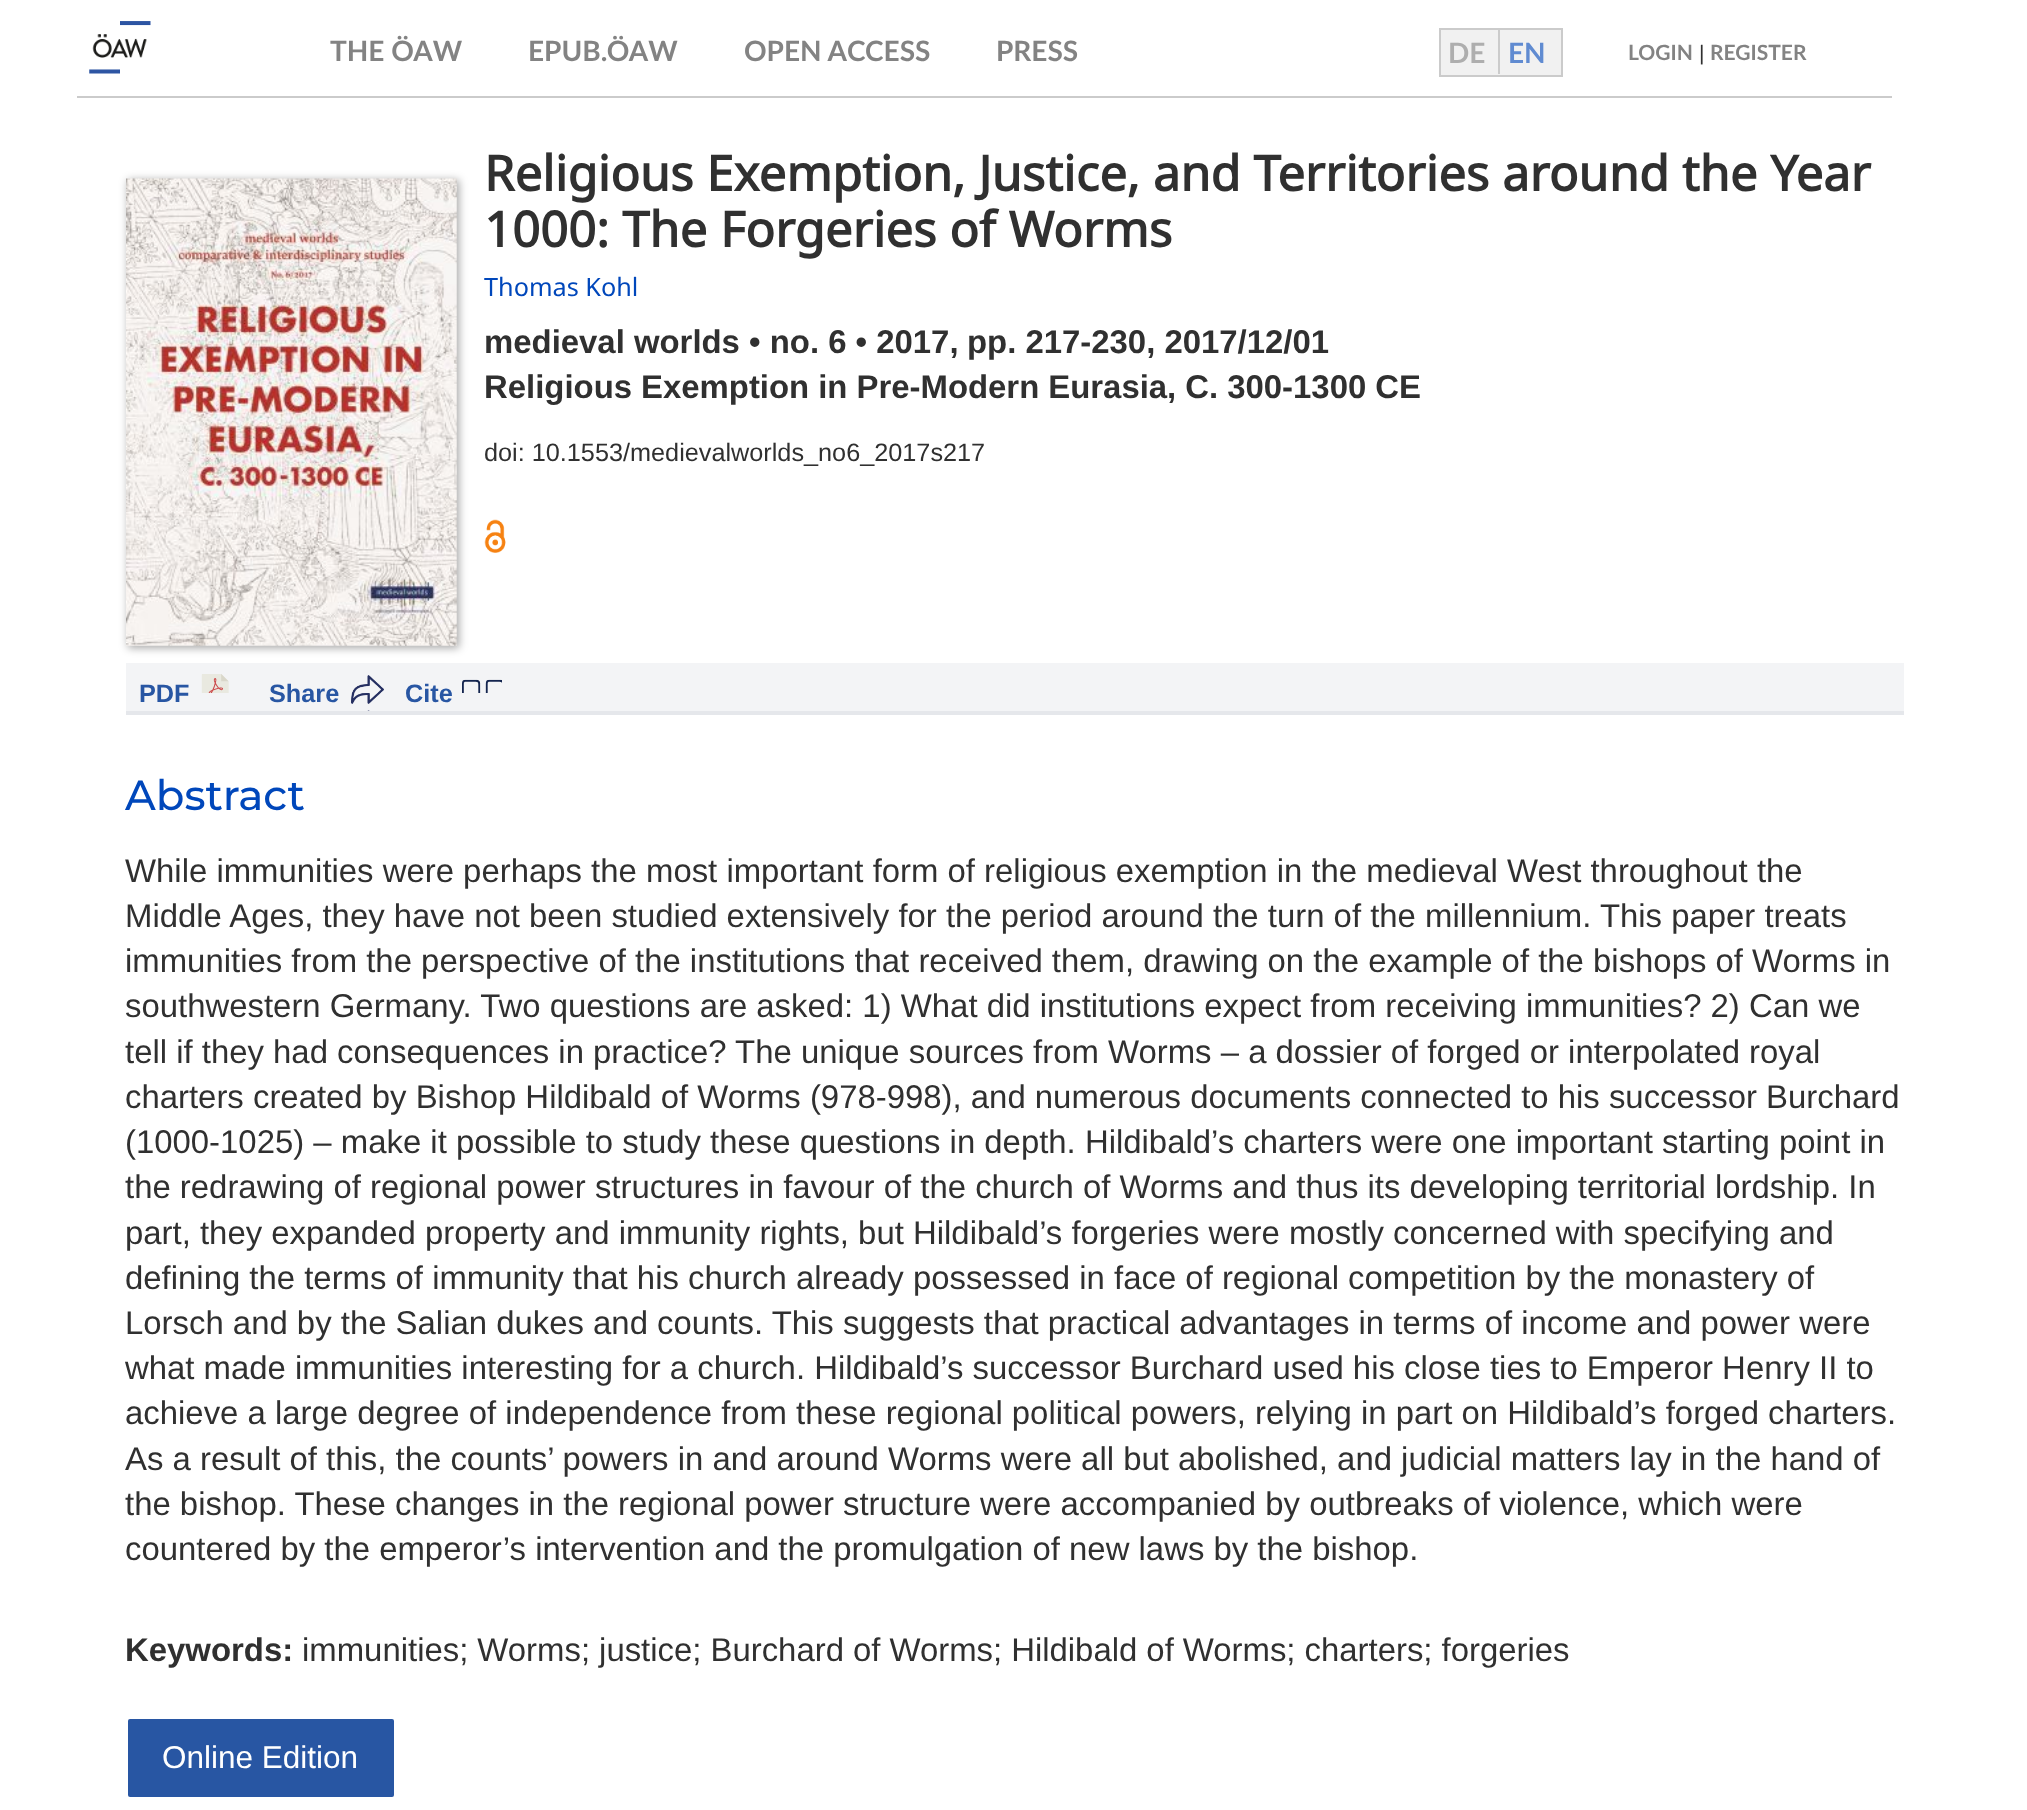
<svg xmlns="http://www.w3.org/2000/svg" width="2027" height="1810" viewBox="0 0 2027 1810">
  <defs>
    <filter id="blur1" x="-50%" y="-200%" width="200%" height="500%"><feGaussianBlur stdDeviation="4.5"/></filter>
  </defs>
  <rect width="100%" height="100%" fill="#ffffff"/>
  <rect x="77" y="96" width="1815" height="2" fill="#cbcbcb"/>
  <image x="89" y="21" width="62" height="53" href="img1.png"/>
  <text x="330" y="61" font-family="Lato" font-size="28" font-weight="bold" fill="#838383">THE ÖAW</text>
  <text x="528" y="61" font-family="Lato" font-size="28" font-weight="bold" fill="#838383">EPUB.ÖAW</text>
  <text x="744" y="61" font-family="Lato" font-size="28" font-weight="bold" fill="#838383">OPEN ACCESS</text>
  <text x="996" y="61" font-family="Lato" font-size="28" font-weight="bold" fill="#838383">PRESS</text>
  <rect x="1440" y="29" width="122" height="47" fill="#f1f1f1" stroke="#cbcbcb" stroke-width="2"/>
  <text x="1448" y="63" font-family="Lato" font-size="28" font-weight="bold" fill="#aeaeae">DE</text>
  <rect x="1498" y="28" width="2" height="46" fill="#cbcbcb"/>
  <text x="1508" y="63" font-family="Lato" font-size="28" font-weight="bold" fill="#608bd1">EN</text>
  <text x="1628" y="60" font-family="Lato" font-size="21" font-weight="bold" fill="#838383">LOGIN</text>
  <text x="1699" y="60" font-family="Liberation Sans" font-size="21" fill="#303030">|</text>
  <text x="1710" y="60" font-family="Lato" font-size="21" font-weight="bold" fill="#838383">REGISTER</text>
  <rect x="128" y="180" width="331" height="468" fill="#000000" fill-opacity="0.35" filter="url(#blur1)"/>
  <image x="126" y="178" width="331" height="468" href="img2.png"/>
  <text x="484" y="191" font-family="Noto Sans" font-size="49" font-weight="bold" fill="#303030">Religious Exemption, Justice, and Territories around the Year</text>
  <text x="484" y="247" font-family="Noto Sans" font-size="49" font-weight="bold" fill="#303030">1000: The Forgeries of Worms</text>
  <text x="484" y="296" font-family="Noto Sans" font-size="25.25" fill="#0047bb">Thomas Kohl</text>
  <text x="484" y="353" font-family="Liberation Sans" font-size="32.9" font-weight="bold" fill="#303030">medieval worlds • no. 6 • 2017,</text>
  <text x="967" y="353" font-family="Liberation Sans" font-size="32.9" font-weight="bold" fill="#303030">pp. 217-230, 2017/12/01</text>
  <text x="484" y="398" word-spacing="-0.1" font-family="Liberation Sans" font-size="32.9" font-weight="bold" fill="#303030">Religious Exemption in Pre-Modern Eurasia, C. 300-1300 CE</text>
  <text x="484" y="461" font-family="Liberation Sans" font-size="25.25" fill="#303030">doi: 10.1553/medievalworlds_no6_2017s217</text>
  <image x="484" y="519" width="22" height="34" href="img3.png"/>
  <rect x="126" y="663" width="1778" height="48" fill="#f3f4f6"/>
  <rect x="126" y="711" width="1778" height="4" fill="#e5e7eb"/>
  <text x="139" y="702" font-family="Liberation Sans" font-size="25.25" font-weight="bold" fill="#2856a3">PDF</text>
  <image x="201" y="674" width="28" height="19" href="img4.png"/>
  <text x="269" y="702" font-family="Liberation Sans" font-size="25.25" font-weight="bold" fill="#2856a3">Share</text>
  <image x="351" y="675" width="33" height="36" href="img5.png"/>
  <text x="405" y="702" font-family="Liberation Sans" font-size="25.25" font-weight="bold" fill="#2856a3">Cite</text>
  <image x="462" y="679" width="40" height="14" href="img6.png"/>
  <text x="125" y="810" font-family="Montserrat" font-size="42" font-weight="500" fill="#0047bb">Abstract</text>
  <text x="125" y="882" font-family="Liberation Sans" font-size="32.9" fill="#303030">While immunities were perhaps the most important form of religious exemption in the medieval West throughout the</text>
  <text x="125" y="927" font-family="Liberation Sans" font-size="32.9" fill="#303030">Middle Ages, they have not been studied extensively for the period around the turn of the millennium. This paper treats</text>
  <text x="125" y="972" font-family="Liberation Sans" font-size="32.9" fill="#303030">immunities from the perspective of the institutions that received them, drawing on the example of the bishops of Worms in</text>
  <text x="125" y="1017" font-family="Liberation Sans" font-size="32.9" fill="#303030">southwestern Germany. Two questions are asked: 1) What did institutions expect from receiving immunities? 2) Can we</text>
  <text x="125" y="1063" font-family="Liberation Sans" font-size="32.9" fill="#303030">tell if they had consequences in practice? The unique sources from Worms – a dossier of forged or interpolated royal</text>
  <text x="125" y="1108" font-family="Liberation Sans" font-size="32.9" fill="#303030">charters created by Bishop Hildibald of Worms (978-998), and numerous documents connected to his successor Burchard</text>
  <text x="125" y="1153" font-family="Liberation Sans" font-size="32.9" fill="#303030">(1000-1025) – make it possible to study these questions in depth. Hildibald’s charters were one important starting point in</text>
  <text x="125" y="1198" font-family="Liberation Sans" font-size="32.9" fill="#303030">the redrawing of regional power structures in favour of the church of Worms and thus its developing territorial lordship. In</text>
  <text x="125" y="1244" font-family="Liberation Sans" font-size="32.9" fill="#303030">part, they expanded property and immunity rights, but Hildibald’s forgeries were mostly concerned with specifying and</text>
  <text x="125" y="1289" font-family="Liberation Sans" font-size="32.9" fill="#303030">defining the terms of immunity that his church already possessed in face of regional competition by the monastery of</text>
  <text x="125" y="1334" font-family="Liberation Sans" font-size="32.9" fill="#303030">Lorsch and by the Salian dukes and counts. This suggests that practical advantages in terms of income and power were</text>
  <text x="125" y="1379" font-family="Liberation Sans" font-size="32.9" fill="#303030">what made immunities interesting for a church. Hildibald’s successor Burchard used his close ties to Emperor Henry II to</text>
  <text x="125" y="1424" font-family="Liberation Sans" font-size="32.9" fill="#303030">achieve a large degree of independence from these regional political powers, relying in part on Hildibald’s forged charters.</text>
  <text x="125" y="1470" font-family="Liberation Sans" font-size="32.9" fill="#303030">As a result of this, the counts’ powers in and around Worms were all but abolished, and judicial matters lay in the hand of</text>
  <text x="125" y="1515" font-family="Liberation Sans" font-size="32.9" fill="#303030">the bishop. These changes in the regional power structure were accompanied by outbreaks of violence, which were</text>
  <text x="125" y="1560" font-family="Liberation Sans" font-size="32.9" fill="#303030">countered by the emperor’s intervention and the promulgation of new laws by the bishop.</text>
  <text x="125" y="1661" font-family="Liberation Sans" font-size="32.9" font-weight="bold" fill="#303030">Keywords:</text>
  <text x="302" y="1661" word-spacing="-0.1" font-family="Liberation Sans" font-size="32.9" fill="#303030">immunities; Worms; justice; Burchard of Worms; Hildibald of Worms; charters; forgeries</text>
  <rect x="128" y="1719" width="266" height="78" rx="2" fill="#2856a3"/>
  <text x="162" y="1768" font-family="Liberation Sans" font-size="31.5" fill="#ffffff">Online Edition</text>
</svg>
